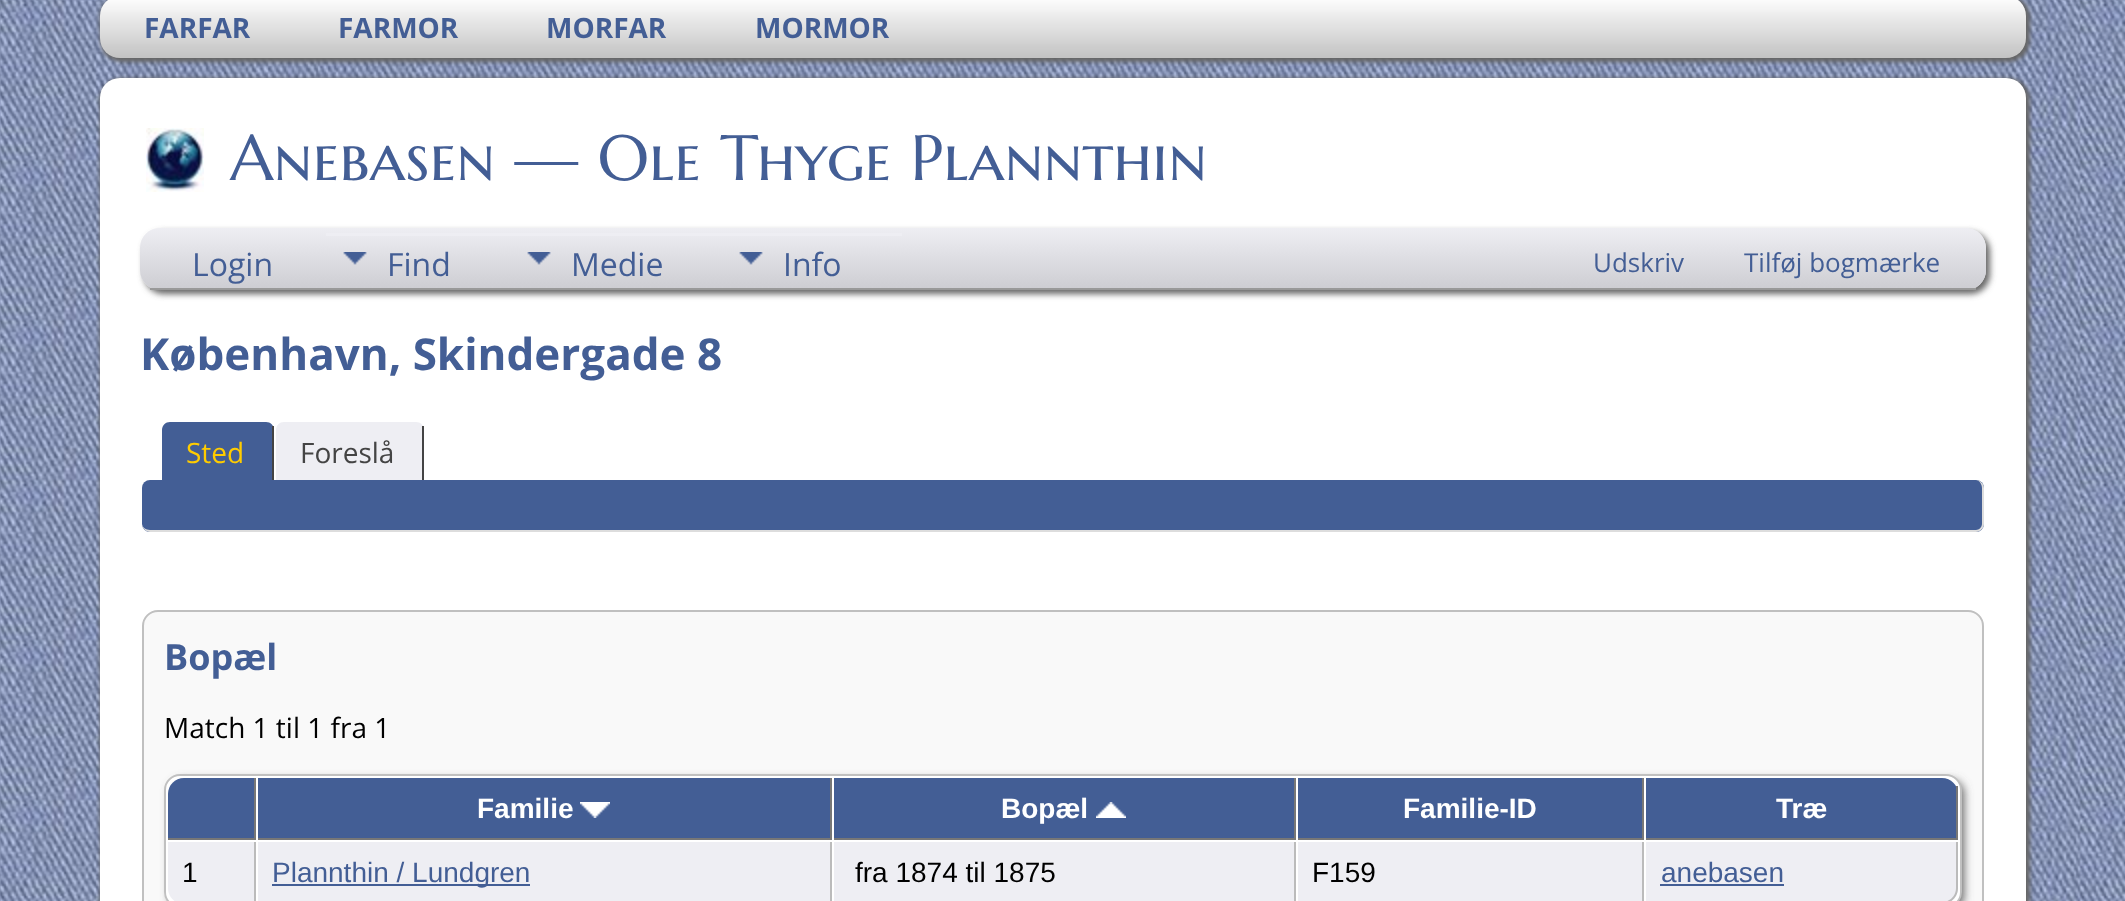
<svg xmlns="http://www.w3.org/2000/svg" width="2125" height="901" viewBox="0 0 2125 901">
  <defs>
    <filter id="blur1" x="-50%" y="-200%" width="200%" height="500%"><feGaussianBlur stdDeviation="2"/></filter>
    <filter id="blur2" x="-50%" y="-200%" width="200%" height="500%"><feGaussianBlur stdDeviation="3"/></filter>
    <clipPath id="clip1"><rect x="140" y="228" width="1846" height="62" rx="20"/></clipPath>
    <linearGradient id="g1" gradientUnits="userSpaceOnUse" x1="1063" y1="228" x2="1063" y2="288"><stop offset="0" stop-color="#eeeef3"/><stop offset="1" stop-color="#ceced3"/></linearGradient>
    <filter id="blur3" x="-50%" y="-200%" width="200%" height="500%"><feGaussianBlur stdDeviation="5"/></filter>
  </defs>
  <rect width="100%" height="100%" fill="#ffffff"/>
  <image x="0" y="0" width="2125" height="901" href="img1.png"/>
  <rect x="100" y="-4" width="1930" height="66" rx="22" fill="#666666" filter="url(#blur1)"/>
  <image x="100" y="0" width="1926" height="58" href="img2.png"/>
  <text x="144" y="38" font-family="Open Sans" font-size="28" font-weight="bold" fill="#435e95">FARFAR</text>
  <text x="338" y="38" font-family="Open Sans" font-size="28" font-weight="bold" fill="#435e95">FARMOR</text>
  <text x="546" y="38" font-family="Open Sans" font-size="28" font-weight="bold" fill="#435e95">MORFAR</text>
  <text x="755" y="38" font-family="Open Sans" font-size="28" font-weight="bold" fill="#435e95">MORMOR</text>
  <rect x="100" y="78" width="1930" height="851" rx="22" fill="#666666" filter="url(#blur1)"/>
  <rect x="100" y="78" width="1926" height="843" rx="20" fill="#ffffff"/>
  <image x="146" y="128" width="58" height="64" href="img3.png"/>
  <text x="230" y="180" font-family="Marcellus SC" font-size="64" fill="#435e95">Anebasen — Ole Thyge Plannthin</text>
  <rect x="144" y="232" width="1846" height="62" rx="20" fill="#666666" filter="url(#blur2)"/>
  <rect x="140" y="228" width="1846" height="62" rx="20" fill="#eeeef3"/>
  <g clip-path="url(#clip1)">
    <path d="M160 228H1966C1977 228 1986 237 1986 248V288H140V248C140 237 149 228 160 228Z" fill="url(#g1)"/>
  </g>
  <rect x="150" y="288" width="1826" height="2" fill="#999999"/>
  <text x="192" y="276" font-family="Open Sans" font-size="32" fill="#435e95">Login</text>
  <rect x="326" y="233" width="576" height="3" fill="#eeeef3"/>
  <image x="326" y="236" width="184" height="52" href="img4.png"/>
  <text x="387" y="276" font-family="Open Sans" font-size="32" fill="#435e95">Find</text>
  <image x="510" y="236" width="212" height="52" href="img5.png"/>
  <text x="571" y="276" font-family="Open Sans" font-size="32" fill="#435e95">Medie</text>
  <image x="722" y="236" width="180" height="52" href="img6.png"/>
  <text x="783" y="276" font-family="Open Sans" font-size="32" fill="#435e95">Info</text>
  <text x="1593" y="272" font-family="Open Sans" font-size="26" fill="#435e95">Udskriv</text>
  <text x="1744" y="272" font-family="Open Sans" font-size="26" fill="#435e95">Tilføj bogmærke</text>
  <text x="140" y="370" font-family="Open Sans" font-size="44" font-weight="bold" fill="#435e95">København, Skindergade 8</text>
  <path d="M170 422H266C270.5 422 274 425.5 274 430V480H162V430C162 425.5 165.5 422 170 422Z" fill="#435e95"/>
  <rect x="272" y="426" width="2" height="54" fill="#444444"/>
  <text x="186" y="463" font-family="Open Sans" font-size="28" fill="#ffcc00">Sted</text>
  <path d="M284 422H416C420.5 422 424 425.5 424 430V480H276V430C276 425.5 279.5 422 284 422Z" fill="#eeeef3"/>
  <rect x="422" y="426" width="2" height="54" fill="#444444"/>
  <text x="300" y="463" font-family="Open Sans" font-size="28" fill="#444444">Foreslå</text>
  <rect x="142" y="480" width="1842" height="52" rx="8" fill="#435e95"/>
  <path d="M150 480H1976C1980 480 1984 484 1984 488V524C1984 528 1980 532 1976 532H150C146 532 142 528 142 524V488C142 484 146 480 150 480ZM150 480H1976C1979 480 1982 484 1982 488V524C1982 527 1979 530 1976 530H150C146 530 142 527 142 524V488C142 484 146 480 150 480Z" fill="#dddddd" fill-rule="evenodd"/>
  <rect x="143" y="611" width="1840" height="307" rx="15" fill="#f9f9f9" stroke="#c0c0c0" stroke-width="2"/>
  <text x="164" y="670" font-family="Open Sans" font-size="36" font-weight="bold" fill="#435e95">Bopæl</text>
  <text x="164" y="738" font-family="Open Sans" font-size="28" fill="#000000">Match 1 til 1 fra 1</text>
  <rect x="170" y="780" width="1794" height="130" rx="14" fill="#666666" filter="url(#blur3)"/>
  <rect x="165" y="775" width="1796" height="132" rx="15" fill="#ffffff" stroke="#c0c0c0" stroke-width="2"/>
  <path d="M184 778H256V840H168V794C168 785 175 778 184 778Z" fill="#435e95"/>
  <rect x="254" y="778" width="2" height="62" fill="#777777"/>
  <rect x="168" y="838" width="88" height="2" fill="#777777"/>
  <rect x="258" y="778" width="572" height="60" fill="#435e95"/>
  <rect x="830" y="778" width="2" height="62" fill="#777777"/>
  <rect x="258" y="838" width="574" height="2" fill="#777777"/>
  <text x="477" y="818" font-family="Liberation Sans" font-size="28" font-weight="bold" fill="#ffffff">Familie</text>
  <image x="580" y="802" width="30" height="16" href="img7.png"/>
  <rect x="834" y="778" width="460" height="60" fill="#435e95"/>
  <rect x="1294" y="778" width="2" height="62" fill="#777777"/>
  <rect x="834" y="838" width="462" height="2" fill="#777777"/>
  <text x="1001" y="818" font-family="Liberation Sans" font-size="28" font-weight="bold" fill="#ffffff">Bopæl</text>
  <image x="1096" y="802" width="30" height="16" href="img8.png"/>
  <rect x="1298" y="778" width="344" height="60" fill="#435e95"/>
  <rect x="1642" y="778" width="2" height="62" fill="#777777"/>
  <rect x="1298" y="838" width="346" height="2" fill="#777777"/>
  <text x="1403" y="818" font-family="Liberation Sans" font-size="28" font-weight="bold" fill="#ffffff">Familie-ID</text>
  <path d="M1646 778H1942C1951 778 1958 785 1958 794V840H1646Z" fill="#435e95"/>
  <rect x="1956" y="786" width="2" height="54" fill="#777777"/>
  <rect x="1646" y="838" width="312" height="2" fill="#777777"/>
  <text x="1776" y="818" font-family="Liberation Sans" font-size="28" font-weight="bold" fill="#ffffff">Træ</text>
  <path d="M168 842H256V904H184C175 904 168 897 168 888Z" fill="#eeeef3"/>
  <rect x="254" y="842" width="2" height="59" fill="#bbbbbb"/>
  <text x="182" y="882" font-family="Liberation Sans" font-size="28" fill="#000000">1</text>
  <rect x="258" y="842" width="572" height="59" fill="#eeeef3"/>
  <rect x="830" y="842" width="2" height="59" fill="#bbbbbb"/>
  <rect x="272" y="884" width="258" height="2" fill="#435e95"/>
  <text x="272" y="882" font-family="Liberation Sans" font-size="28" fill="#435e95">Plannthin / Lundgren</text>
  <rect x="834" y="842" width="460" height="59" fill="#eeeef3"/>
  <rect x="1294" y="842" width="2" height="59" fill="#bbbbbb"/>
  <text x="855" y="882" font-family="Liberation Sans" font-size="28" fill="#000000">fra 1874 til 1875</text>
  <rect x="1298" y="842" width="344" height="59" fill="#eeeef3"/>
  <rect x="1642" y="842" width="2" height="59" fill="#bbbbbb"/>
  <text x="1312" y="882" font-family="Liberation Sans" font-size="28" fill="#000000">F159</text>
  <path d="M1646 842H1958V888C1958 897 1951 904 1942 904H1646Z" fill="#eeeef3"/>
  <path d="M1646 842H1958V888C1958 897 1951 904 1942 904H1646ZM1646 842H1956V888C1956 896 1950 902 1942 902H1646Z" fill="#bbbbbb" fill-rule="evenodd"/>
  <text x="1661" y="882" font-family="Liberation Sans" font-size="28" fill="#435e95">anebasen</text>
  <rect x="1660" y="884" width="124" height="2" fill="#435e95"/>
</svg>
